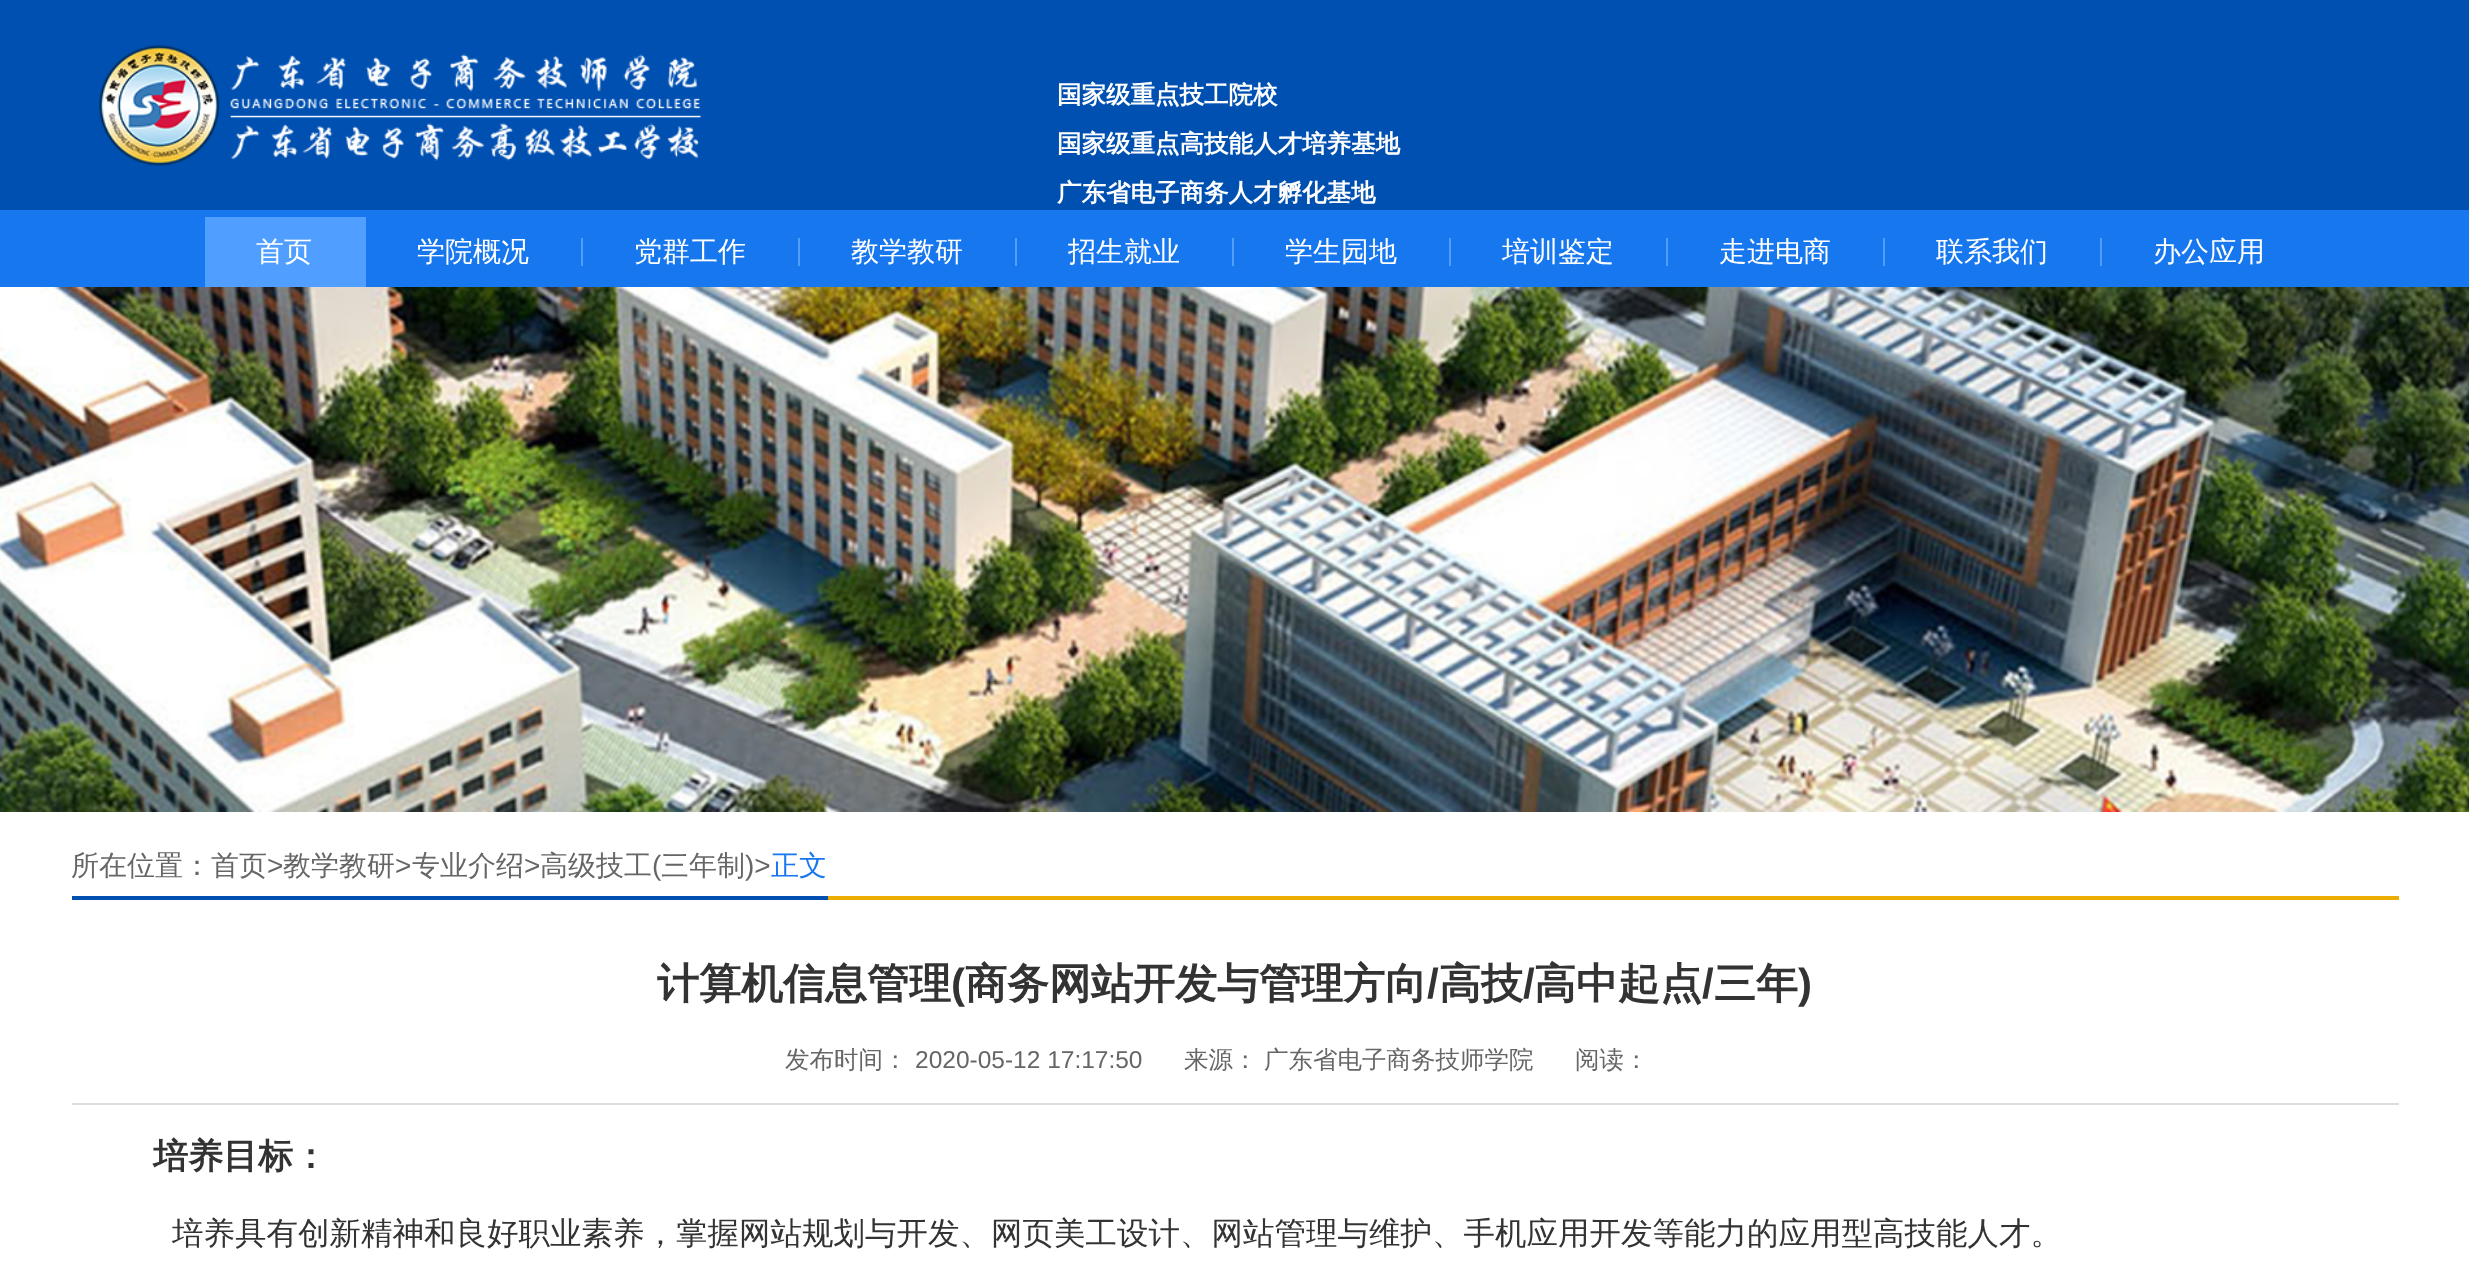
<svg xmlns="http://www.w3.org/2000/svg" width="2469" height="1274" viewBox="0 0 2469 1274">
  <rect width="100%" height="100%" fill="#ffffff"/>
  <rect x="0" y="0" width="2469" height="210" fill="#0050b1"/>
  <image x="99" y="45" width="602" height="121" href="img1.png"/>
  <text x="1057" y="103" font-family="WenQuanYi Zen Hei" font-size="24.5" font-weight="bold" fill="#ffffff">国家级重点技工院校</text>
  <text x="1057" y="152" font-family="WenQuanYi Zen Hei" font-size="24.5" font-weight="bold" fill="#ffffff">国家级重点高技能人才培养基地</text>
  <text x="1057" y="201" font-family="WenQuanYi Zen Hei" font-size="24.5" font-weight="bold" fill="#ffffff">广东省电子商务人才孵化基地</text>
  <rect x="0" y="210" width="2469" height="77" fill="#1777ef"/>
  <rect x="205" y="217" width="161" height="70" fill="#509eff"/>
  <text x="256" y="261" font-family="WenQuanYi Zen Hei" font-size="28" font-weight="500" fill="#ffffff">首页</text>
  <text x="417" y="261" font-family="WenQuanYi Zen Hei" font-size="28" font-weight="500" fill="#ffffff">学院概况</text>
  <rect x="581" y="238" width="2" height="28" fill="#509eff"/>
  <text x="634" y="261" font-family="WenQuanYi Zen Hei" font-size="28" font-weight="500" fill="#ffffff">党群工作</text>
  <rect x="798" y="238" width="2" height="28" fill="#509eff"/>
  <text x="851" y="261" font-family="WenQuanYi Zen Hei" font-size="28" font-weight="500" fill="#ffffff">教学教研</text>
  <rect x="1015" y="238" width="2" height="28" fill="#509eff"/>
  <text x="1068" y="261" font-family="WenQuanYi Zen Hei" font-size="28" font-weight="500" fill="#ffffff">招生就业</text>
  <rect x="1232" y="238" width="2" height="28" fill="#509eff"/>
  <text x="1285" y="261" font-family="WenQuanYi Zen Hei" font-size="28" font-weight="500" fill="#ffffff">学生园地</text>
  <rect x="1449" y="238" width="2" height="28" fill="#509eff"/>
  <text x="1502" y="261" font-family="WenQuanYi Zen Hei" font-size="28" font-weight="500" fill="#ffffff">培训鉴定</text>
  <rect x="1666" y="238" width="2" height="28" fill="#509eff"/>
  <text x="1719" y="261" font-family="WenQuanYi Zen Hei" font-size="28" font-weight="500" fill="#ffffff">走进电商</text>
  <rect x="1883" y="238" width="2" height="28" fill="#509eff"/>
  <text x="1936" y="261" font-family="WenQuanYi Zen Hei" font-size="28" font-weight="500" fill="#ffffff">联系我们</text>
  <rect x="2100" y="238" width="2" height="28" fill="#509eff"/>
  <text x="2153" y="261" font-family="WenQuanYi Zen Hei" font-size="28" font-weight="500" fill="#ffffff">办公应用</text>
  <image x="0" y="287" width="2469" height="525" href="img2.png"/>
  <rect x="828" y="896" width="1571" height="4" fill="#ecad00"/>
  <rect x="72" y="896" width="756" height="4" fill="#0050b2"/>
  <text x="71" y="875" font-family="WenQuanYi Zen Hei" font-size="28" font-weight="500" fill="#666666">所在位置：首页</text>
  <text x="267" y="875" font-family="Liberation Sans" font-size="28" fill="#666666">&gt;</text>
  <text x="283" y="875" font-family="WenQuanYi Zen Hei" font-size="28" font-weight="500" fill="#666666">教学教研</text>
  <text x="395" y="875" font-family="Liberation Sans" font-size="28" fill="#666666">&gt;</text>
  <text x="412" y="875" font-family="WenQuanYi Zen Hei" font-size="28" font-weight="500" fill="#666666">专业介绍</text>
  <text x="524" y="875" font-family="Liberation Sans" font-size="28" fill="#666666">&gt;</text>
  <text x="540" y="875" font-family="WenQuanYi Zen Hei" font-size="28" font-weight="500" fill="#666666">高级技工</text>
  <text x="652" y="875" font-family="Liberation Sans" font-size="28" fill="#666666">(</text>
  <text x="661" y="875" font-family="WenQuanYi Zen Hei" font-size="28" font-weight="500" fill="#666666">三年制</text>
  <text x="745" y="875" font-family="Liberation Sans" font-size="28" fill="#666666">)&gt;</text>
  <text x="771" y="875" font-family="WenQuanYi Zen Hei" font-size="28" font-weight="500" fill="#1777ef">正文</text>
  <rect x="72" y="1103" width="2327" height="2" fill="#dddddd"/>
  <text x="657" y="998" font-family="WenQuanYi Zen Hei" font-size="42" font-weight="bold" fill="#333333">计算机信息管理</text>
  <text x="951" y="998" font-family="Liberation Sans" font-size="42" font-weight="bold" fill="#333333">(</text>
  <text x="965" y="998" font-family="WenQuanYi Zen Hei" font-size="42" font-weight="bold" fill="#333333">商务网站开发与管理方向</text>
  <text x="1427" y="998" font-family="Liberation Sans" font-size="42" font-weight="bold" fill="#333333">/</text>
  <text x="1439" y="998" font-family="WenQuanYi Zen Hei" font-size="42" font-weight="bold" fill="#333333">高技</text>
  <text x="1523" y="998" font-family="Liberation Sans" font-size="42" font-weight="bold" fill="#333333">/</text>
  <text x="1534" y="998" font-family="WenQuanYi Zen Hei" font-size="42" font-weight="bold" fill="#333333">高中起点</text>
  <text x="1702" y="998" font-family="Liberation Sans" font-size="42" font-weight="bold" fill="#333333">/</text>
  <text x="1714" y="998" font-family="WenQuanYi Zen Hei" font-size="42" font-weight="bold" fill="#333333">三年</text>
  <text x="1798" y="998" font-family="Liberation Sans" font-size="42" font-weight="bold" fill="#333333">)</text>
  <text x="785" y="1068" font-family="WenQuanYi Zen Hei" font-size="24.5" font-weight="500" fill="#666666">发布时间：</text>
  <text x="915" y="1068" font-family="Liberation Sans" font-size="24.5" fill="#666666">2020-05-12 17:17:50</text>
  <text x="1184" y="1068" font-family="WenQuanYi Zen Hei" font-size="24.5" font-weight="500" fill="#666666">来源：</text>
  <text x="1264" y="1068" font-family="WenQuanYi Zen Hei" font-size="24.5" font-weight="500" fill="#666666">广东省电子商务技师学院</text>
  <text x="1575" y="1068" font-family="WenQuanYi Zen Hei" font-size="24.5" font-weight="500" fill="#666666">阅读：</text>
  <text x="153" y="1168" font-family="WenQuanYi Zen Hei" font-size="35" font-weight="bold" fill="#333333">培养目标：</text>
  <text x="172" y="1244" font-family="WenQuanYi Zen Hei" font-size="31.5" font-weight="500" fill="#333333">培养具有创新精神和良好职业素养，掌握网站规划与开发、网页美工设计、网站管理与维护、手机应用开发等能力的应用型高技能人才。</text>
</svg>
